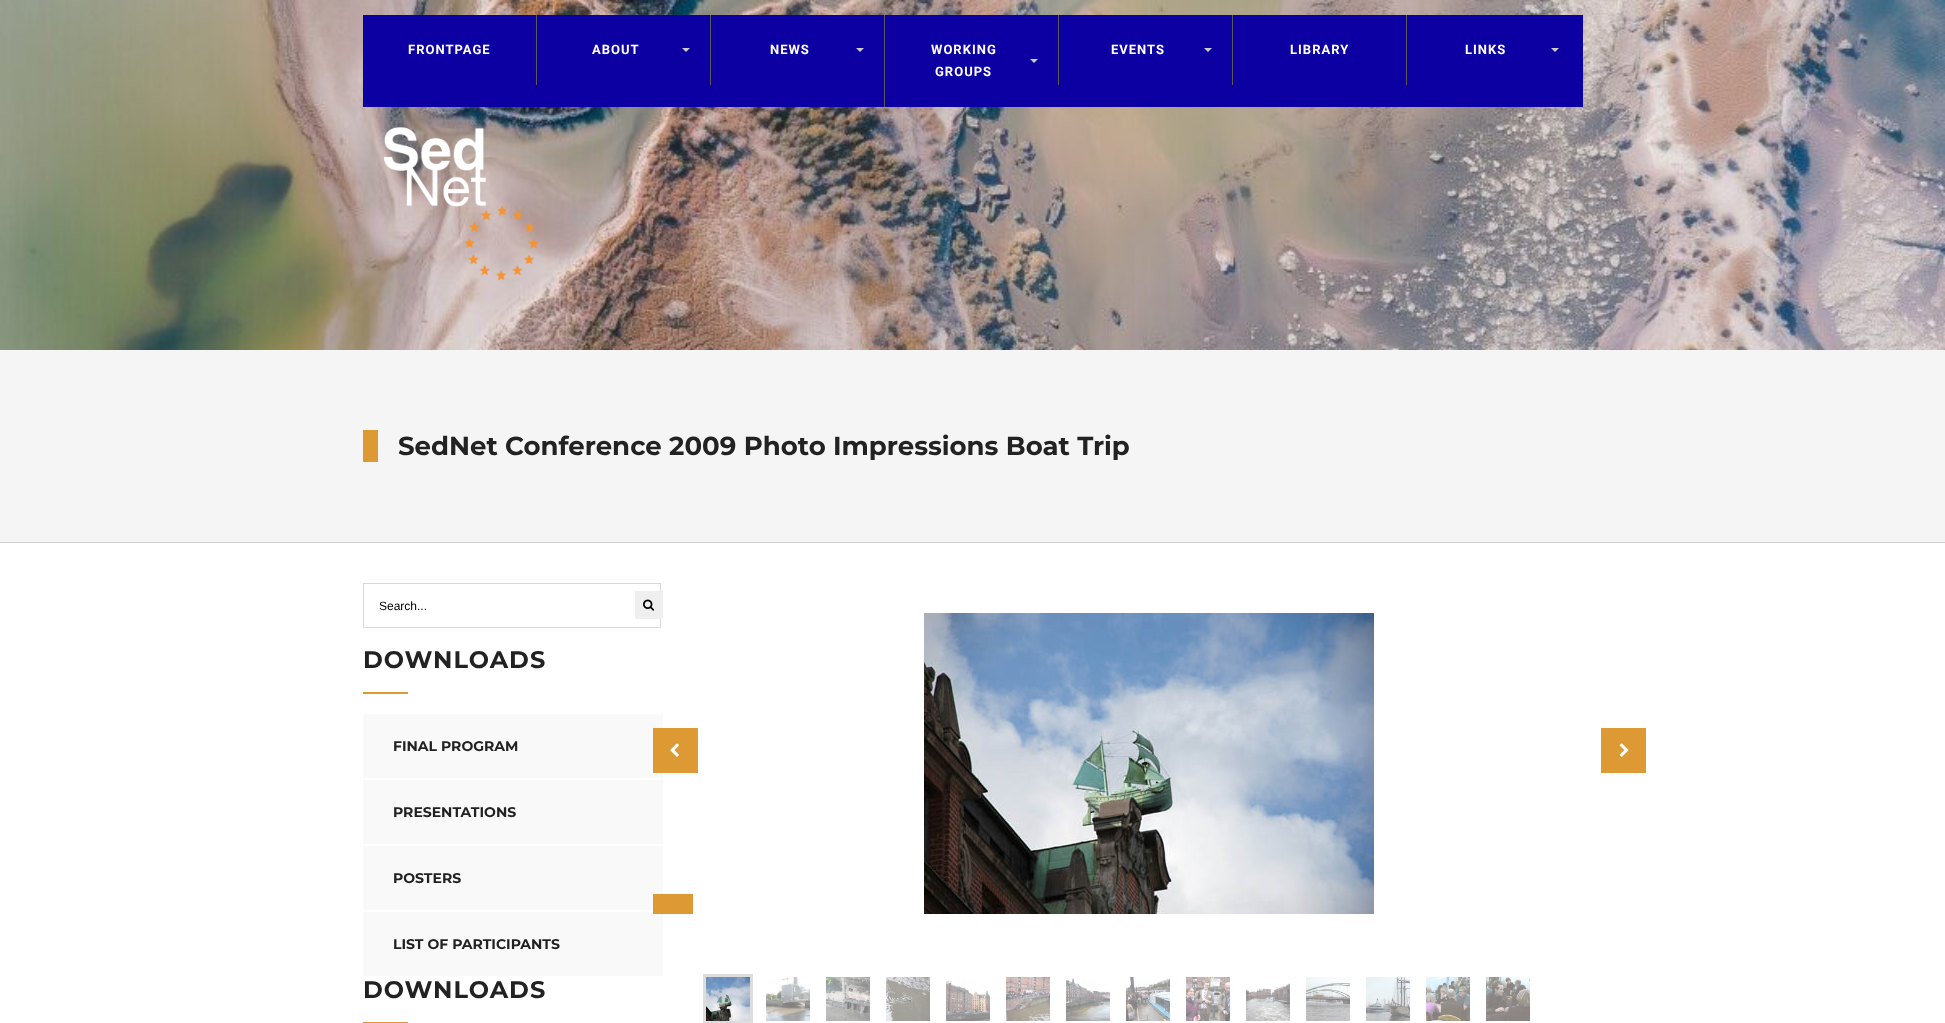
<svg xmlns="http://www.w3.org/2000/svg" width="1945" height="1023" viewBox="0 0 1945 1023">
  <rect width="100%" height="100%" fill="#ffffff"/>
  <image x="0" y="0" width="1945" height="350" href="img1.png"/>
  <rect x="363" y="15" width="1220" height="92" fill="#0d00a3"/>
  <text x="408" y="54" font-family="Roboto" font-size="13" font-weight="bold" letter-spacing="1" fill="#ffffff">FRONTPAGE</text>
  <rect x="536" y="15" width="1" height="70" fill="#595959"/>
  <text x="592" y="54" font-family="Roboto" font-size="13" font-weight="bold" letter-spacing="1" fill="#ffffff">ABOUT</text>
  <path d="M682 48H690L686 52Z" fill="#cccccc"/>
  <rect x="710" y="15" width="1" height="70" fill="#595959"/>
  <text x="770" y="54" font-family="Roboto" font-size="13" font-weight="bold" letter-spacing="1" fill="#ffffff">NEWS</text>
  <path d="M856 48H864L860 52Z" fill="#cccccc"/>
  <rect x="884" y="15" width="1" height="92" fill="#595959"/>
  <text x="931" y="54" font-family="Roboto" font-size="13" font-weight="bold" letter-spacing="1" fill="#ffffff">WORKING</text>
  <path d="M1030 59H1038L1034 63Z" fill="#cccccc"/>
  <text x="935" y="76" font-family="Roboto" font-size="13" font-weight="bold" letter-spacing="1" fill="#ffffff">GROUPS</text>
  <rect x="1058" y="15" width="1" height="70" fill="#595959"/>
  <text x="1111" y="54" font-family="Roboto" font-size="13" font-weight="bold" letter-spacing="1" fill="#ffffff">EVENTS</text>
  <path d="M1204 48H1212L1208 52Z" fill="#cccccc"/>
  <rect x="1232" y="15" width="1" height="70" fill="#595959"/>
  <text x="1290" y="54" font-family="Roboto" font-size="13" font-weight="bold" letter-spacing="1" fill="#ffffff">LIBRARY</text>
  <rect x="1406" y="15" width="1" height="70" fill="#595959"/>
  <text x="1465" y="54" font-family="Roboto" font-size="13" font-weight="bold" letter-spacing="1" fill="#ffffff">LINKS</text>
  <path d="M1551 48H1559L1555 52Z" fill="#cccccc"/>
  <image x="383" y="127" width="156" height="154" href="img2.png"/>
  <rect x="0" y="350" width="1945" height="192" fill="#f5f5f5"/>
  <rect x="0" y="542" width="1945" height="1" fill="#cccccc"/>
  <rect x="363" y="430" width="15" height="32" fill="#dd9933"/>
  <text x="398" y="455" font-family="Montserrat" font-size="26" font-weight="bold" fill="#222222">SedNet Conference 2009 Photo Impressions Boat Trip</text>
  <rect x="363.5" y="583.5" width="297" height="44" fill="none" stroke="#d9d9d9"/>
  <text x="379" y="610" font-family="Liberation Sans" font-size="12" fill="#000000">Search...</text>
  <rect x="635" y="591" width="28" height="28" fill="#efefef"/>
  <image x="643" y="599" width="12" height="12" href="img3.png"/>
  <text x="363" y="668" font-family="Montserrat" font-size="24" font-weight="bold" letter-spacing="1" fill="#222222">DOWNLOADS</text>
  <rect x="363" y="692" width="45" height="2" fill="#dd9933"/>
  <rect x="363" y="714" width="300" height="64" fill="#f9f9f9"/>
  <text x="393" y="751" font-family="Montserrat" font-size="14" font-weight="bold" fill="#222222">FINAL PROGRAM</text>
  <rect x="363" y="780" width="300" height="64" fill="#f9f9f9"/>
  <text x="393" y="817" font-family="Montserrat" font-size="14" font-weight="bold" fill="#222222">PRESENTATIONS</text>
  <rect x="363" y="846" width="300" height="64" fill="#f9f9f9"/>
  <text x="393" y="883" font-family="Montserrat" font-size="14" font-weight="bold" fill="#222222">POSTERS</text>
  <rect x="363" y="912" width="300" height="64" fill="#f9f9f9"/>
  <text x="393" y="949" font-family="Montserrat" font-size="14" font-weight="bold" fill="#222222">LIST OF PARTICIPANTS</text>
  <text x="363" y="998" font-family="Montserrat" font-size="24" font-weight="bold" letter-spacing="1" fill="#222222">DOWNLOADS</text>
  <rect x="363" y="1022" width="45" height="1" fill="#dd9933"/>
  <rect x="653" y="894" width="40" height="20" fill="#dd9933"/>
  <image x="924" y="613" width="450" height="301" href="img4.png"/>
  <rect x="653" y="728" width="45" height="45" fill="#dd9933"/>
  <image x="670" y="743" width="9" height="14" href="img5.png"/>
  <rect x="1601" y="728" width="45" height="45" fill="#dd9933"/>
  <image x="1619" y="743" width="10" height="14" href="img6.png"/>
  <image x="703" y="974" width="50" height="49" href="img7.png"/>
  <image x="766" y="977" width="44" height="44" href="img8.png"/>
  <image x="826" y="977" width="44" height="44" href="img9.png"/>
  <image x="886" y="977" width="44" height="44" href="img10.png"/>
  <image x="946" y="980" width="44" height="41" href="img11.png"/>
  <image x="1006" y="977" width="44" height="44" href="img12.png"/>
  <image x="1066" y="977" width="44" height="44" href="img13.png"/>
  <image x="1126" y="977" width="44" height="44" href="img14.png"/>
  <image x="1186" y="977" width="44" height="44" href="img15.png"/>
  <image x="1246" y="983" width="44" height="38" href="img16.png"/>
  <image x="1306" y="977" width="44" height="44" href="img17.png"/>
  <image x="1366" y="977" width="44" height="44" href="img18.png"/>
  <image x="1426" y="977" width="44" height="44" href="img19.png"/>
  <image x="1486" y="977" width="44" height="44" href="img20.png"/>
</svg>
